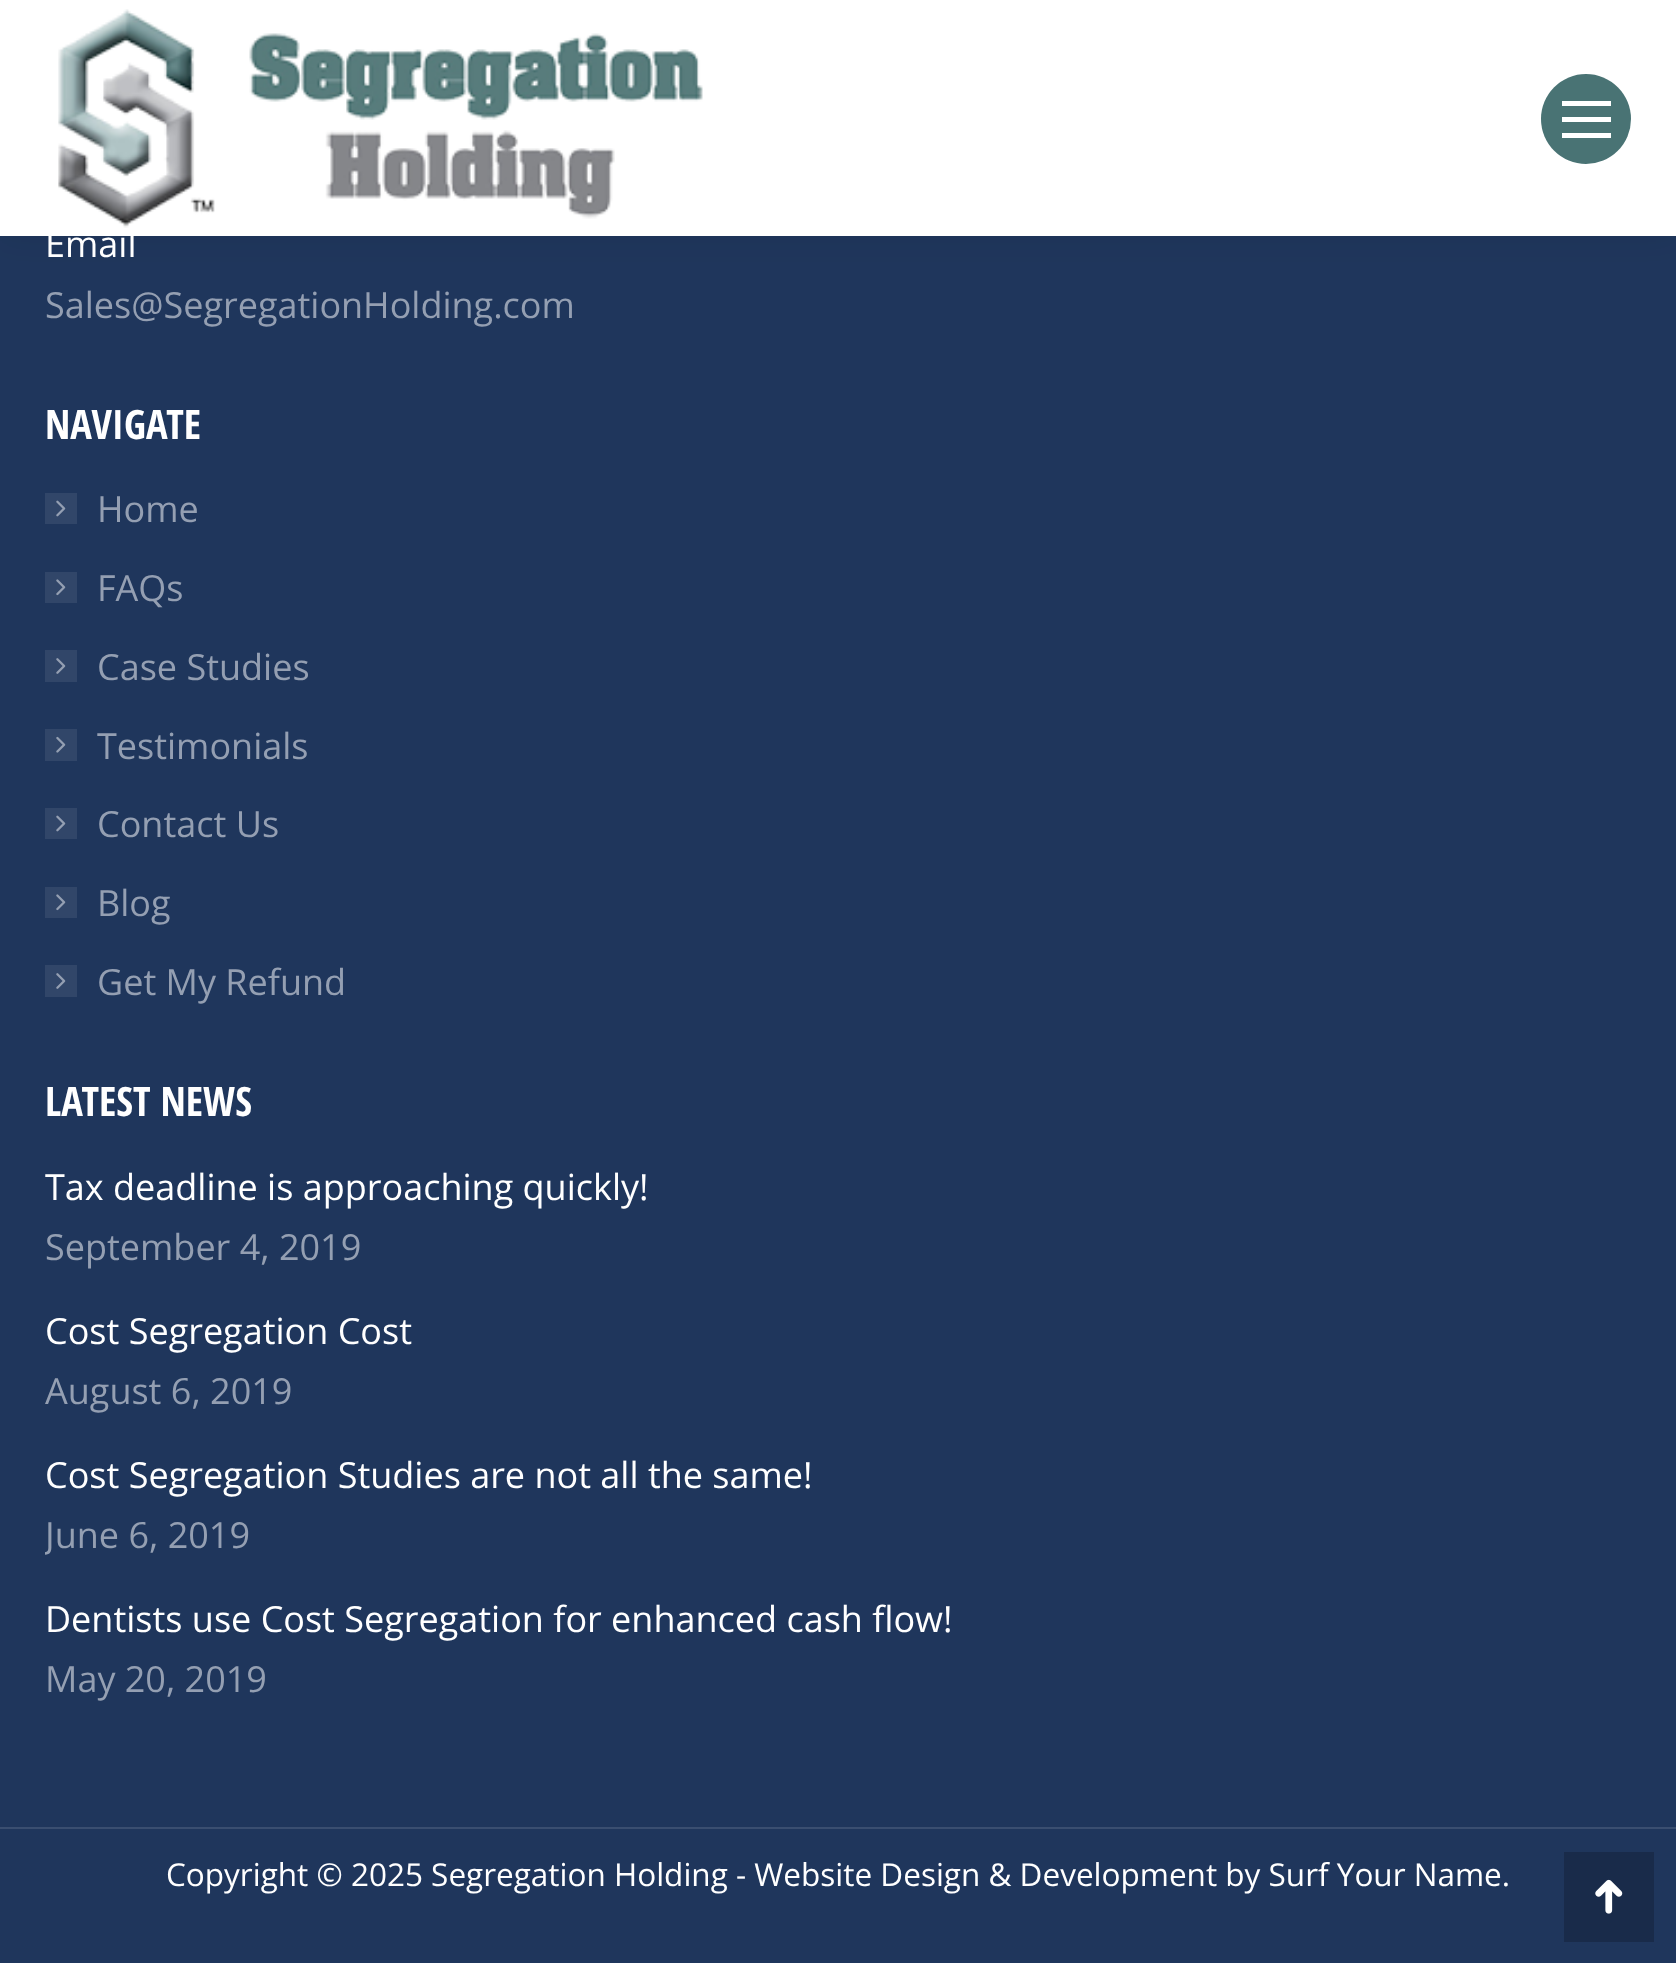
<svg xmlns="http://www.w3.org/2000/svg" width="1676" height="1963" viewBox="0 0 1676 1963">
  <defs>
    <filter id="blur1" x="-50%" y="-200%" width="200%" height="500%"><feGaussianBlur stdDeviation="17"/></filter>
    <clipPath id="clip1"><rect x="45" y="1449" width="1586" height="144"/></clipPath>
  </defs>
  <rect width="100%" height="100%" fill="#1f365c"/>
  <rect x="-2" y="-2" width="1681" height="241" fill="#000000" fill-opacity="0.07" filter="url(#blur1)"/>
  <rect x="0" y="0" width="1676" height="236" fill="#ffffff"/>
  <image x="58" y="9" width="645" height="219" href="img1.png"/>
  <circle cx="1586" cy="119" r="45" fill="#497374"/>
  <rect x="1562" y="101" width="49" height="5" fill="#ffffff"/>
  <rect x="1562" y="117" width="49" height="5" fill="#ffffff"/>
  <rect x="1562" y="133" width="49" height="5" fill="#ffffff"/>
  <text x="45" y="257" font-family="Open Sans" font-size="36" fill="#ffffff">Email</text>
  <text x="45" y="318" font-family="Open Sans" font-size="36" fill="#949fb2">Sales@SegregationHolding.com</text>
  <text x="45" y="439" font-family="Open Sans Condensed" font-size="40.5" font-weight="bold" fill="#ffffff">NAVIGATE</text>
  <rect x="45" y="493" width="32" height="31" fill="#314669"/>
  <text x="97" y="522" font-family="Open Sans" font-size="36" fill="#949fb2">Home</text>
  <image x="56" y="500" width="10" height="17" href="img2.png"/>
  <rect x="45" y="572" width="32" height="31" fill="#314669"/>
  <text x="97" y="601" font-family="Open Sans" font-size="36" fill="#949fb2">FAQs</text>
  <image x="56" y="579" width="10" height="17" href="img3.png"/>
  <rect x="45" y="650" width="32" height="32" fill="#314669"/>
  <text x="97" y="680" font-family="Open Sans" font-size="36" fill="#949fb2">Case Studies</text>
  <image x="56" y="658" width="10" height="16" href="img4.png"/>
  <rect x="45" y="729" width="32" height="32" fill="#314669"/>
  <text x="97" y="759" font-family="Open Sans" font-size="36" fill="#949fb2">Testimonials</text>
  <image x="56" y="736" width="10" height="17" href="img5.png"/>
  <rect x="45" y="808" width="32" height="31" fill="#314669"/>
  <text x="97" y="837" font-family="Open Sans" font-size="36" fill="#949fb2">Contact Us</text>
  <image x="56" y="815" width="10" height="17" href="img2.png"/>
  <rect x="45" y="887" width="32" height="31" fill="#314669"/>
  <text x="97" y="916" font-family="Open Sans" font-size="36" fill="#949fb2">Blog</text>
  <image x="56" y="894" width="10" height="17" href="img3.png"/>
  <rect x="45" y="965" width="32" height="32" fill="#314669"/>
  <text x="97" y="995" font-family="Open Sans" font-size="36" fill="#949fb2">Get My Refund</text>
  <image x="56" y="973" width="10" height="16" href="img4.png"/>
  <text x="45" y="1116" font-family="Open Sans Condensed" font-size="40.5" font-weight="bold" fill="#ffffff">LATEST NEWS</text>
  <text x="45" y="1200" font-family="Open Sans" font-size="36" fill="#ffffff">Tax deadline is approaching quickly!</text>
  <text x="45" y="1260" font-family="Open Sans" font-size="36" fill="#949fb2">September 4, 2019</text>
  <text x="45" y="1344" font-family="Open Sans" font-size="36" fill="#ffffff">Cost Segregation Cost</text>
  <text x="45" y="1404" font-family="Open Sans" font-size="36" fill="#949fb2">August 6, 2019</text>
  <text x="45" y="1488" font-family="Open Sans" font-size="36" fill="#ffffff">Cost Segregation Studies are not all the same!</text>
  <g clip-path="url(#clip1)">
    <text x="45" y="1548" font-family="Open Sans" font-size="36" fill="#949fb2">June 6, 2019</text>
  </g>
  <text x="45" y="1632" font-family="Open Sans" font-size="36" fill="#ffffff">Dentists use Cost Segregation for enhanced cash flow!</text>
  <text x="45" y="1692" font-family="Open Sans" font-size="36" fill="#949fb2">May 20, 2019</text>
  <rect x="0" y="1827" width="1676" height="2" fill="#3a4e70"/>
  <text x="166" y="1886" font-family="Open Sans" font-size="31.5" fill="#ffffff">Copyright © 2025 Segregation Holding - Website Design &amp; Development by Surf Your Name.</text>
  <rect x="1564" y="1852" width="90" height="90" fill="#192b4a"/>
  <image x="1595" y="1879" width="28" height="35" href="img6.png"/>
</svg>
